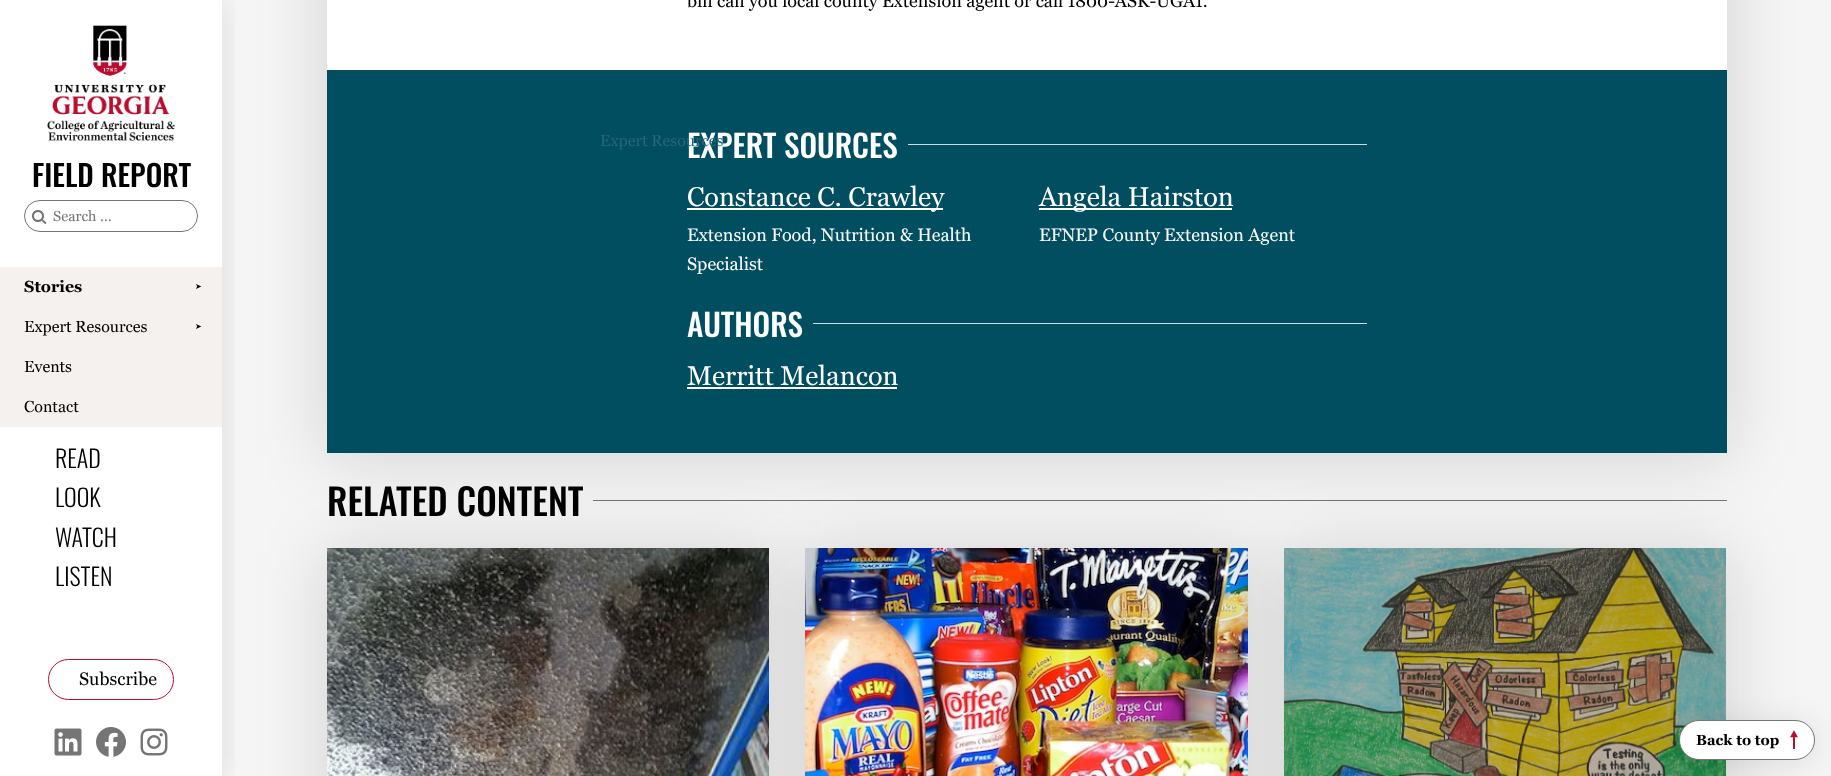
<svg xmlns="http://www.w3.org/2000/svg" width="1831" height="776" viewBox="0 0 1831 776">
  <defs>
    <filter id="blur1" x="-50%" y="-200%" width="200%" height="500%"><feGaussianBlur stdDeviation="35"/></filter>
    <filter id="blur2" x="-50%" y="-200%" width="200%" height="500%"><feGaussianBlur stdDeviation="15"/></filter>
    <clipPath id="clip1"><rect x="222" y="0" width="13" height="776"/></clipPath>
  </defs>
  <rect width="100%" height="100%" fill="#ffffff"/>
  <rect x="222" y="0" width="1609" height="776" fill="#f5f5f5"/>
  <rect x="593" y="500" width="1134" height="1" fill="#757575"/>
  <rect x="327" y="-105" width="1400" height="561" fill="#000000" fill-opacity="0.15" filter="url(#blur1)"/>
  <rect x="327" y="0" width="1400" height="70" fill="#ffffff"/>
  <text x="687" y="7" font-family="Georgia" font-size="18" fill="#000000">bill call you local county Extension agent or call 1800-ASK-UGA1.</text>
  <rect x="327" y="70" width="1400" height="383" fill="#004e60"/>
  <text x="687" y="158" font-family="Oswald" font-size="31.25" font-weight="500" fill="#ffffff">EXPERT SOURCES</text>
  <rect x="908" y="144" width="459" height="1" fill="#ccdcdf"/>
  <rect x="687" y="208" width="256" height="2" fill="#ffffff"/>
  <text x="687" y="206" font-family="Georgia" font-size="27" fill="#ffffff">Constance C. Crawley</text>
  <text x="687" y="241" font-family="Georgia" font-size="18" fill="#ffffff">Extension Food, Nutrition &amp; Health</text>
  <text x="687" y="270" font-family="Georgia" font-size="18" fill="#ffffff">Specialist</text>
  <rect x="1039" y="208" width="193" height="2" fill="#ffffff"/>
  <text x="1039" y="206" font-family="Georgia" font-size="27" fill="#ffffff">Angela Hairston</text>
  <text x="1039" y="241" font-family="Georgia" font-size="18" fill="#ffffff">EFNEP County Extension Agent</text>
  <text x="687" y="337" font-family="Oswald" font-size="31.25" font-weight="500" fill="#ffffff">AUTHORS</text>
  <rect x="813" y="323" width="554" height="1" fill="#ccdcdf"/>
  <text x="687" y="385" font-family="Georgia" font-size="27" fill="#ffffff">Merritt Melancon</text>
  <rect x="687" y="387" width="210" height="2" fill="#ffffff"/>
  <rect x="327" y="551" width="442" height="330" fill="#000000" fill-opacity="0.15" filter="url(#blur1)"/>
  <image x="327" y="548" width="442" height="228" href="img1.png"/>
  <rect x="805" y="551" width="443" height="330" fill="#000000" fill-opacity="0.15" filter="url(#blur1)"/>
  <image x="805" y="548" width="443" height="228" href="img2.png"/>
  <rect x="1284" y="551" width="442" height="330" fill="#000000" fill-opacity="0.15" filter="url(#blur1)"/>
  <image x="1284" y="548" width="442" height="228" href="img3.png"/>
  <text x="327" y="516" font-family="Oswald" font-size="36.5" font-weight="500" fill="#000000">RELATED CONTENT</text>
  <rect x="1679" y="723" width="136" height="40" rx="20" fill="#000000" fill-opacity="0.1" filter="url(#blur2)"/>
  <rect x="1679.5" y="720.5" width="135" height="39" rx="19.5" fill="#ffffff" stroke="#757575"/>
  <text x="1696" y="745" font-family="Georgia" font-size="14.5" font-weight="bold" fill="#000000">Back to top</text>
  <image x="1790" y="730" width="8" height="19" href="img4.png"/>
  <g clip-path="url(#clip1)">
    <rect x="0" y="3" width="222" height="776" fill="#000000" fill-opacity="0.1" filter="url(#blur2)"/>
  </g>
  <text x="600" y="146" font-family="Georgia" font-size="16" fill="#256777">Expert Resources</text>
  <rect x="0" y="267" width="222" height="160" fill="#f4f1ef"/>
  <text x="24" y="292" font-family="Georgia" font-size="16" font-weight="bold" fill="#000000">Stories</text>
  <text x="195" y="289" font-family="DejaVu Sans" font-size="8" fill="#000000">➤</text>
  <text x="24" y="332" font-family="Georgia" font-size="16" fill="#000000">Expert Resources</text>
  <text x="195" y="329" font-family="DejaVu Sans" font-size="8" fill="#000000">➤</text>
  <text x="24" y="372" font-family="Georgia" font-size="16" fill="#000000">Events</text>
  <text x="24" y="412" font-family="Georgia" font-size="16" fill="#000000">Contact</text>
  <text x="55" y="468" font-family="Oswald" font-size="24" font-weight="300" fill="#000000">READ</text>
  <text x="55" y="507" font-family="Oswald" font-size="24" font-weight="300" fill="#000000">LOOK</text>
  <text x="55" y="547" font-family="Oswald" font-size="24" font-weight="300" fill="#000000">WATCH</text>
  <text x="55" y="586" font-family="Oswald" font-size="24" font-weight="300" fill="#000000">LISTEN</text>
  <image x="47" y="25" width="128" height="116" href="img5.png"/>
  <text x="32" y="187" font-family="Oswald" font-size="29.5" font-weight="500" fill="#000000">FIELD REPORT</text>
  <circle cx="38" cy="216" r="5" fill="none" stroke="#757575" stroke-width="1.9"/>
  <path d="M42 220L46 223.5" fill="none" stroke="#757575" stroke-width="1.9"/>
  <circle cx="38" cy="216" r="5" fill="none" stroke="#757575" stroke-width="1.9"/>
  <rect x="24.5" y="200.5" width="173" height="31" rx="15.5" fill="none" stroke="#757575"/>
  <text x="53" y="221" font-family="Georgia" font-size="14.5" fill="#757575">Search …</text>
  <rect x="48.5" y="659.5" width="125" height="40" rx="20" fill="none" stroke="#ba0c2f"/>
  <text x="79" y="685" font-family="Georgia" font-size="18" fill="#000000">Subscribe</text>
  <image x="54" y="728" width="28" height="28" href="img6.png"/>
  <image x="96" y="727" width="30" height="30" href="img7.png"/>
  <image x="140" y="728" width="28" height="28" href="img8.png"/>
</svg>
